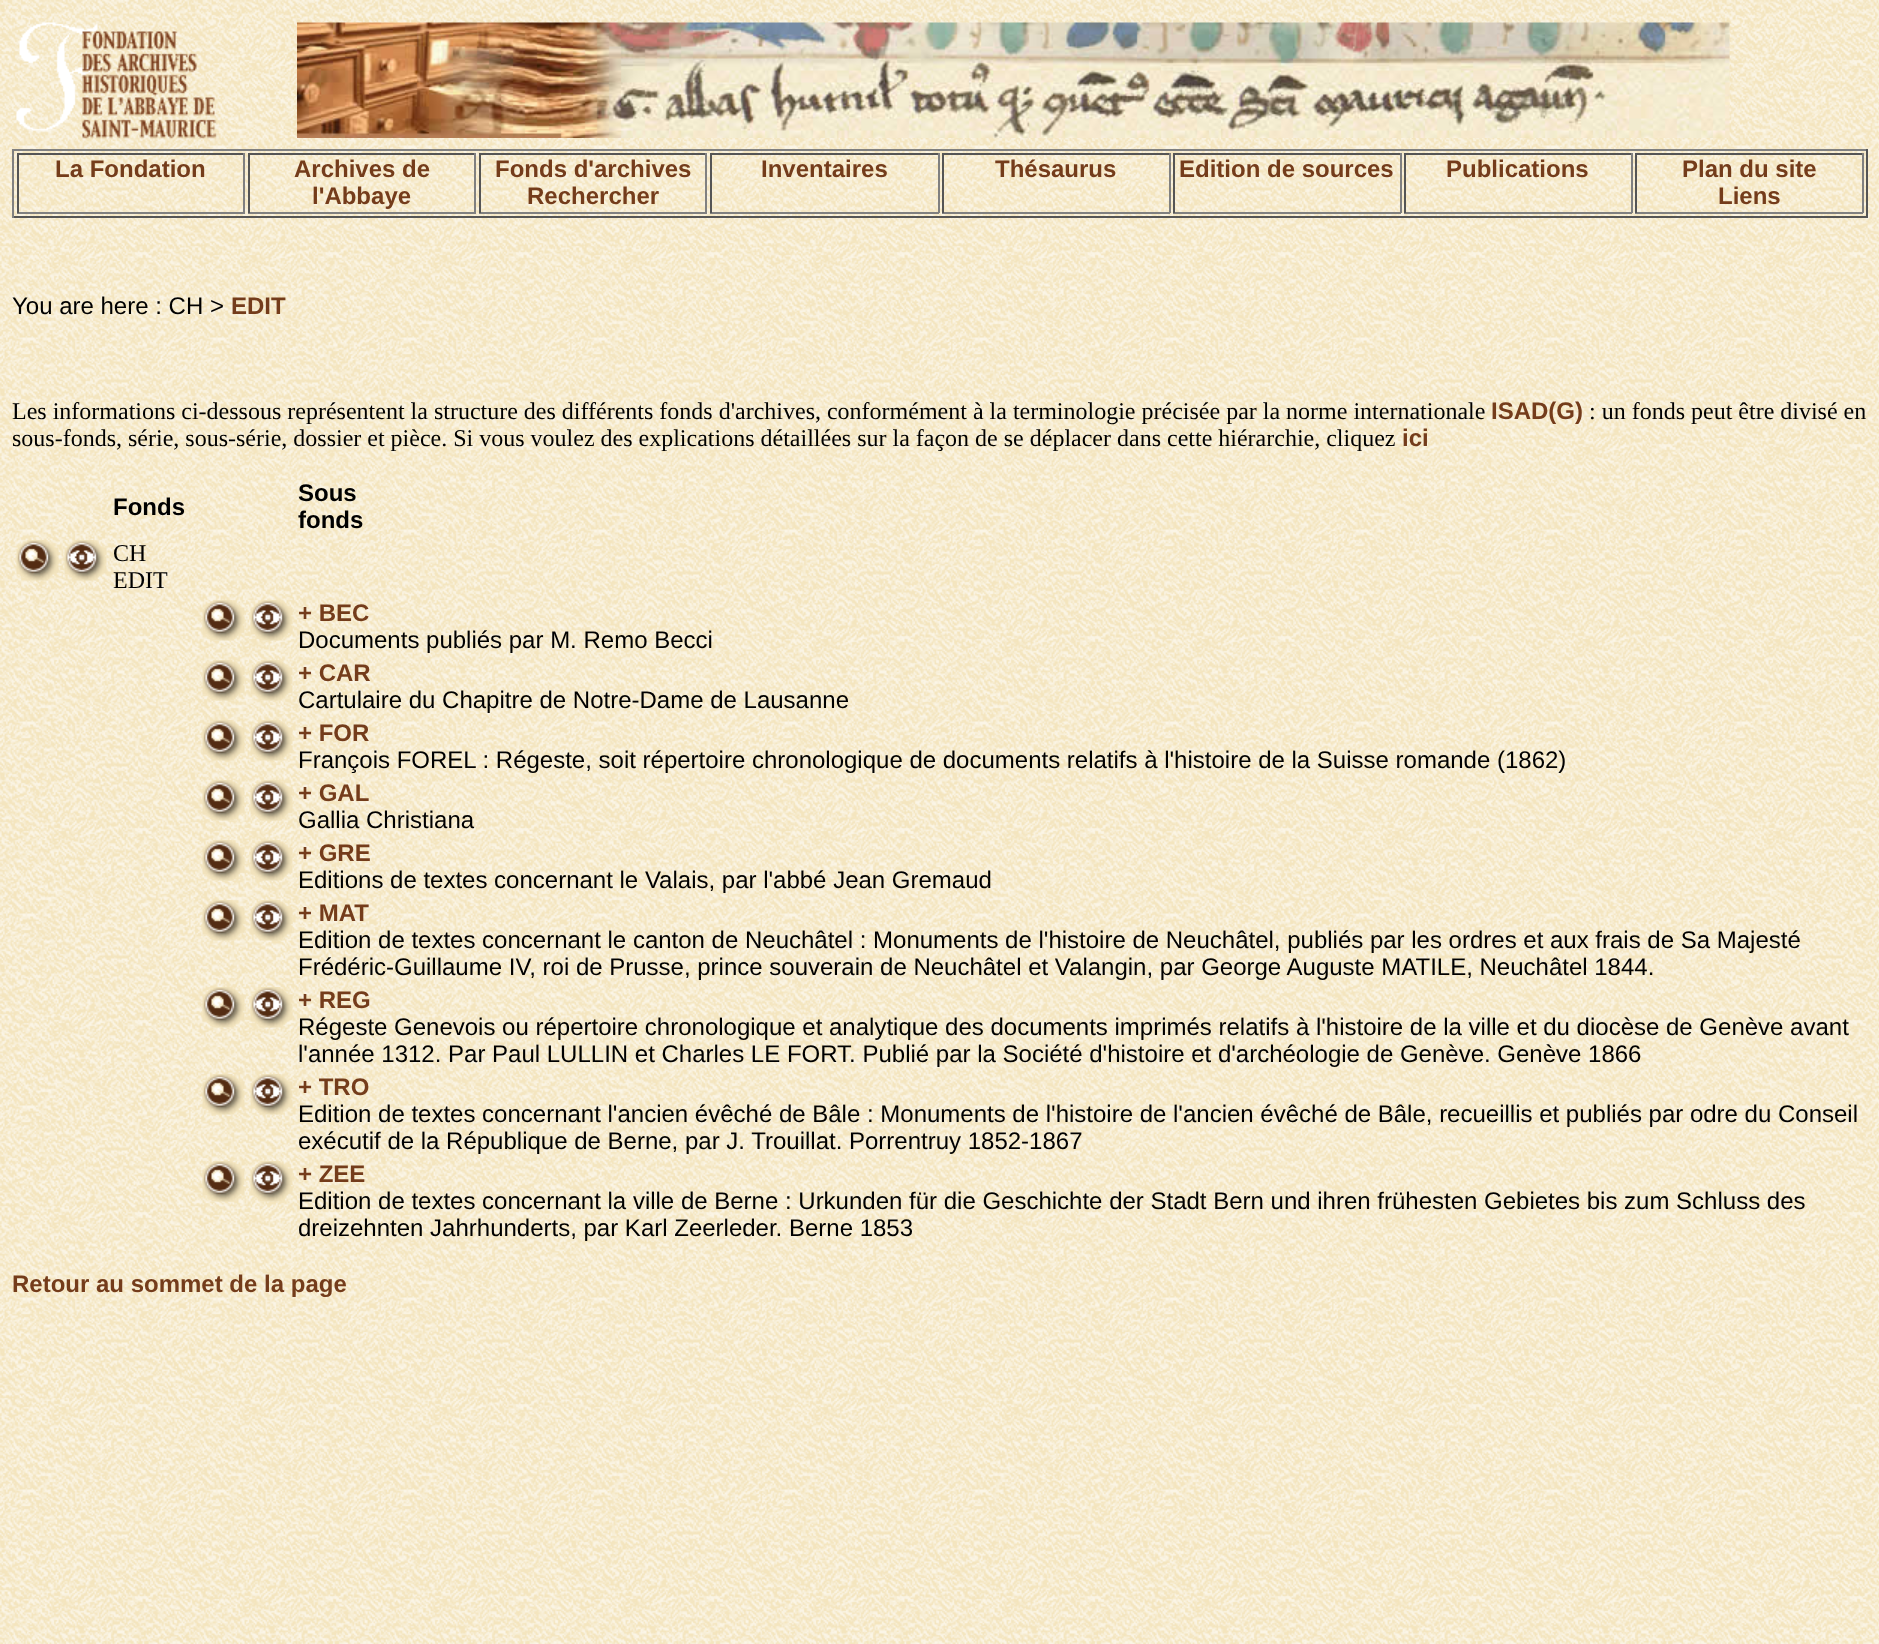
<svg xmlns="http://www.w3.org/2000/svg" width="1879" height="1644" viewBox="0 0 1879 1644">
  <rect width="100%" height="100%" fill="#ffffff"/>
  <image x="0" y="0" width="1879" height="1644" href="img1.png"/>
  <image x="16" y="22" width="201" height="117" href="img2.png"/>
  <image x="297" y="22" width="1433" height="116" href="img3.png"/>
  <rect x="12" y="149" width="1856" height="2" fill="#808080"/>
  <rect x="1866" y="149" width="2" height="69" fill="#555555"/>
  <rect x="12" y="216" width="1856" height="2" fill="#555555"/>
  <rect x="12" y="149" width="2" height="69" fill="#808080"/>
  <rect x="17" y="153" width="228" height="2" fill="#555555"/>
  <rect x="243" y="153" width="2" height="60" fill="#808080"/>
  <rect x="17" y="212" width="228" height="2" fill="#808080"/>
  <rect x="17" y="153" width="2" height="60" fill="#555555"/>
  <text x="55" y="177" font-family="Liberation Sans" font-size="24" font-weight="bold" fill="#743c1b">La Fondation</text>
  <rect x="248" y="153" width="228" height="2" fill="#555555"/>
  <rect x="474" y="153" width="2" height="60" fill="#808080"/>
  <rect x="248" y="212" width="228" height="2" fill="#808080"/>
  <rect x="248" y="153" width="2" height="60" fill="#555555"/>
  <text x="294" y="177" font-family="Liberation Sans" font-size="24" font-weight="bold" fill="#743c1b">Archives de</text>
  <text x="312" y="204" font-family="Liberation Sans" font-size="24" font-weight="bold" fill="#743c1b">l'Abbaye</text>
  <rect x="479" y="153" width="228" height="2" fill="#555555"/>
  <rect x="705" y="153" width="2" height="60" fill="#808080"/>
  <rect x="479" y="212" width="228" height="2" fill="#808080"/>
  <rect x="479" y="153" width="2" height="60" fill="#555555"/>
  <text x="495" y="177" font-family="Liberation Sans" font-size="24" font-weight="bold" fill="#743c1b">Fonds d'archives</text>
  <text x="527" y="204" font-family="Liberation Sans" font-size="24" font-weight="bold" fill="#743c1b">Rechercher</text>
  <rect x="710" y="153" width="229" height="2" fill="#555555"/>
  <rect x="938" y="153" width="2" height="60" fill="#808080"/>
  <rect x="710" y="212" width="229" height="2" fill="#808080"/>
  <rect x="710" y="153" width="2" height="60" fill="#555555"/>
  <text x="761" y="177" font-family="Liberation Sans" font-size="24" font-weight="bold" fill="#743c1b">Inventaires</text>
  <rect x="942" y="153" width="228" height="2" fill="#555555"/>
  <rect x="1169" y="153" width="2" height="60" fill="#808080"/>
  <rect x="942" y="212" width="228" height="2" fill="#808080"/>
  <rect x="942" y="153" width="2" height="60" fill="#555555"/>
  <text x="995" y="177" font-family="Liberation Sans" font-size="24" font-weight="bold" fill="#743c1b">Thésaurus</text>
  <rect x="1173" y="153" width="228" height="2" fill="#555555"/>
  <rect x="1400" y="153" width="2" height="60" fill="#808080"/>
  <rect x="1173" y="212" width="228" height="2" fill="#808080"/>
  <rect x="1173" y="153" width="2" height="60" fill="#555555"/>
  <text x="1179" y="177" font-family="Liberation Sans" font-size="24" font-weight="bold" fill="#743c1b">Edition de sources</text>
  <rect x="1404" y="153" width="228" height="2" fill="#555555"/>
  <rect x="1631" y="153" width="2" height="60" fill="#808080"/>
  <rect x="1404" y="212" width="228" height="2" fill="#808080"/>
  <rect x="1404" y="153" width="2" height="60" fill="#555555"/>
  <text x="1446" y="177" font-family="Liberation Sans" font-size="24" font-weight="bold" fill="#743c1b">Publications</text>
  <rect x="1635" y="153" width="228" height="2" fill="#555555"/>
  <rect x="1862" y="153" width="2" height="60" fill="#808080"/>
  <rect x="1635" y="212" width="228" height="2" fill="#808080"/>
  <rect x="1635" y="153" width="2" height="60" fill="#555555"/>
  <text x="1682" y="177" font-family="Liberation Sans" font-size="24" font-weight="bold" fill="#743c1b">Plan du site</text>
  <text x="1718" y="204" font-family="Liberation Sans" font-size="24" font-weight="bold" fill="#743c1b">Liens</text>
  <text x="12" y="314" font-family="Liberation Sans" font-size="24" fill="#000000">You are here : CH &gt;</text>
  <text x="231" y="314" font-family="Liberation Sans" font-size="24" font-weight="bold" fill="#743c1b">EDIT</text>
  <text x="12" y="419" font-family="Liberation Serif" font-size="24" fill="#000000">Les informations ci-dessous représentent la structure des différents fonds d'archives, conformément à la terminologie précisée par la norme internationale</text>
  <text x="1491" y="419" font-family="Liberation Sans" font-size="24" font-weight="bold" fill="#743c1b">ISAD(G)</text>
  <text x="1589" y="419" font-family="Liberation Serif" font-size="24" fill="#000000">: un fonds peut être divisé en</text>
  <text x="12" y="446" font-family="Liberation Serif" font-size="24" fill="#000000">sous-fonds, série, sous-série, dossier et pièce. Si vous voulez des explications détaillées sur la façon de se déplacer dans cette hiérarchie, cliquez</text>
  <text x="1402" y="446" font-family="Liberation Sans" font-size="24" font-weight="bold" fill="#743c1b">ici</text>
  <text x="113" y="515" font-family="Liberation Sans" font-size="24" font-weight="bold" fill="#000000">Fonds</text>
  <text x="298" y="501" font-family="Liberation Sans" font-size="24" font-weight="bold" fill="#000000">Sous</text>
  <text x="298" y="528" font-family="Liberation Sans" font-size="24" font-weight="bold" fill="#000000">fonds</text>
  <image x="16" y="540" width="43" height="41" href="img4.png"/>
  <image x="64" y="540" width="43" height="41" href="img5.png"/>
  <text x="113" y="561" font-family="Liberation Serif" font-size="24" fill="#000000">CH</text>
  <text x="113" y="588" font-family="Liberation Serif" font-size="24" fill="#000000">EDIT</text>
  <image x="202" y="600" width="43" height="41" href="img6.png"/>
  <image x="250" y="600" width="43" height="41" href="img7.png"/>
  <text x="298" y="621" font-family="Liberation Sans" font-size="24" font-weight="bold" fill="#743c1b">+ BEC</text>
  <text x="298" y="648" font-family="Liberation Sans" font-size="24" fill="#000000">Documents publiés par M. Remo Becci</text>
  <image x="202" y="660" width="43" height="41" href="img8.png"/>
  <image x="250" y="660" width="43" height="41" href="img9.png"/>
  <text x="298" y="681" font-family="Liberation Sans" font-size="24" font-weight="bold" fill="#743c1b">+ CAR</text>
  <text x="298" y="708" font-family="Liberation Sans" font-size="24" fill="#000000">Cartulaire du Chapitre de Notre-Dame de Lausanne</text>
  <image x="202" y="720" width="43" height="41" href="img10.png"/>
  <image x="250" y="720" width="43" height="41" href="img11.png"/>
  <text x="298" y="741" font-family="Liberation Sans" font-size="24" font-weight="bold" fill="#743c1b">+ FOR</text>
  <text x="298" y="768" font-family="Liberation Sans" font-size="24" fill="#000000">François FOREL : Régeste, soit répertoire chronologique de documents relatifs à l'histoire de la Suisse romande (1862)</text>
  <image x="202" y="780" width="43" height="41" href="img12.png"/>
  <image x="250" y="780" width="43" height="41" href="img13.png"/>
  <text x="298" y="801" font-family="Liberation Sans" font-size="24" font-weight="bold" fill="#743c1b">+ GAL</text>
  <text x="298" y="828" font-family="Liberation Sans" font-size="24" fill="#000000">Gallia Christiana</text>
  <image x="202" y="840" width="43" height="41" href="img14.png"/>
  <image x="250" y="840" width="43" height="41" href="img15.png"/>
  <text x="298" y="861" font-family="Liberation Sans" font-size="24" font-weight="bold" fill="#743c1b">+ GRE</text>
  <text x="298" y="888" font-family="Liberation Sans" font-size="24" fill="#000000">Editions de textes concernant le Valais, par l'abbé Jean Gremaud</text>
  <image x="202" y="900" width="43" height="41" href="img16.png"/>
  <image x="250" y="900" width="43" height="41" href="img17.png"/>
  <text x="298" y="921" font-family="Liberation Sans" font-size="24" font-weight="bold" fill="#743c1b">+ MAT</text>
  <text x="298" y="948" font-family="Liberation Sans" font-size="24" fill="#000000">Edition de textes concernant le canton de Neuchâtel : Monuments de l'histoire de Neuchâtel, publiés par les ordres et aux frais de Sa Majesté</text>
  <text x="298" y="975" font-family="Liberation Sans" font-size="24" fill="#000000">Frédéric-Guillaume IV, roi de Prusse, prince souverain de Neuchâtel et Valangin, par George Auguste MATILE, Neuchâtel 1844.</text>
  <image x="202" y="987" width="43" height="41" href="img18.png"/>
  <image x="250" y="987" width="43" height="41" href="img19.png"/>
  <text x="298" y="1008" font-family="Liberation Sans" font-size="24" font-weight="bold" fill="#743c1b">+ REG</text>
  <text x="298" y="1035" font-family="Liberation Sans" font-size="24" fill="#000000">Régeste Genevois ou répertoire chronologique et analytique des documents imprimés relatifs à l'histoire de la ville et du diocèse de Genève avant</text>
  <text x="298" y="1062" font-family="Liberation Sans" font-size="24" fill="#000000">l'année 1312. Par Paul LULLIN et Charles LE FORT. Publié par la Société d'histoire et d'archéologie de Genève. Genève 1866</text>
  <image x="202" y="1074" width="43" height="41" href="img20.png"/>
  <image x="250" y="1074" width="43" height="41" href="img21.png"/>
  <text x="298" y="1095" font-family="Liberation Sans" font-size="24" font-weight="bold" fill="#743c1b">+ TRO</text>
  <text x="298" y="1122" font-family="Liberation Sans" font-size="24" fill="#000000">Edition de textes concernant l'ancien évêché de Bâle : Monuments de l'histoire de l'ancien évêché de Bâle, recueillis et publiés par odre du Conseil</text>
  <text x="298" y="1149" font-family="Liberation Sans" font-size="24" fill="#000000">exécutif de la République de Berne, par J. Trouillat. Porrentruy 1852-1867</text>
  <image x="202" y="1161" width="43" height="41" href="img22.png"/>
  <image x="250" y="1161" width="43" height="41" href="img23.png"/>
  <text x="298" y="1182" font-family="Liberation Sans" font-size="24" font-weight="bold" fill="#743c1b">+ ZEE</text>
  <text x="298" y="1209" font-family="Liberation Sans" font-size="24" fill="#000000">Edition de textes concernant la ville de Berne : Urkunden für die Geschichte der Stadt Bern und ihren frühesten Gebietes bis zum Schluss des</text>
  <text x="298" y="1236" font-family="Liberation Sans" font-size="24" fill="#000000">dreizehnten Jahrhunderts, par Karl Zeerleder. Berne 1853</text>
  <text x="12" y="1292" font-family="Liberation Sans" font-size="24" font-weight="bold" fill="#743c1b">Retour au sommet de la page</text>
</svg>
